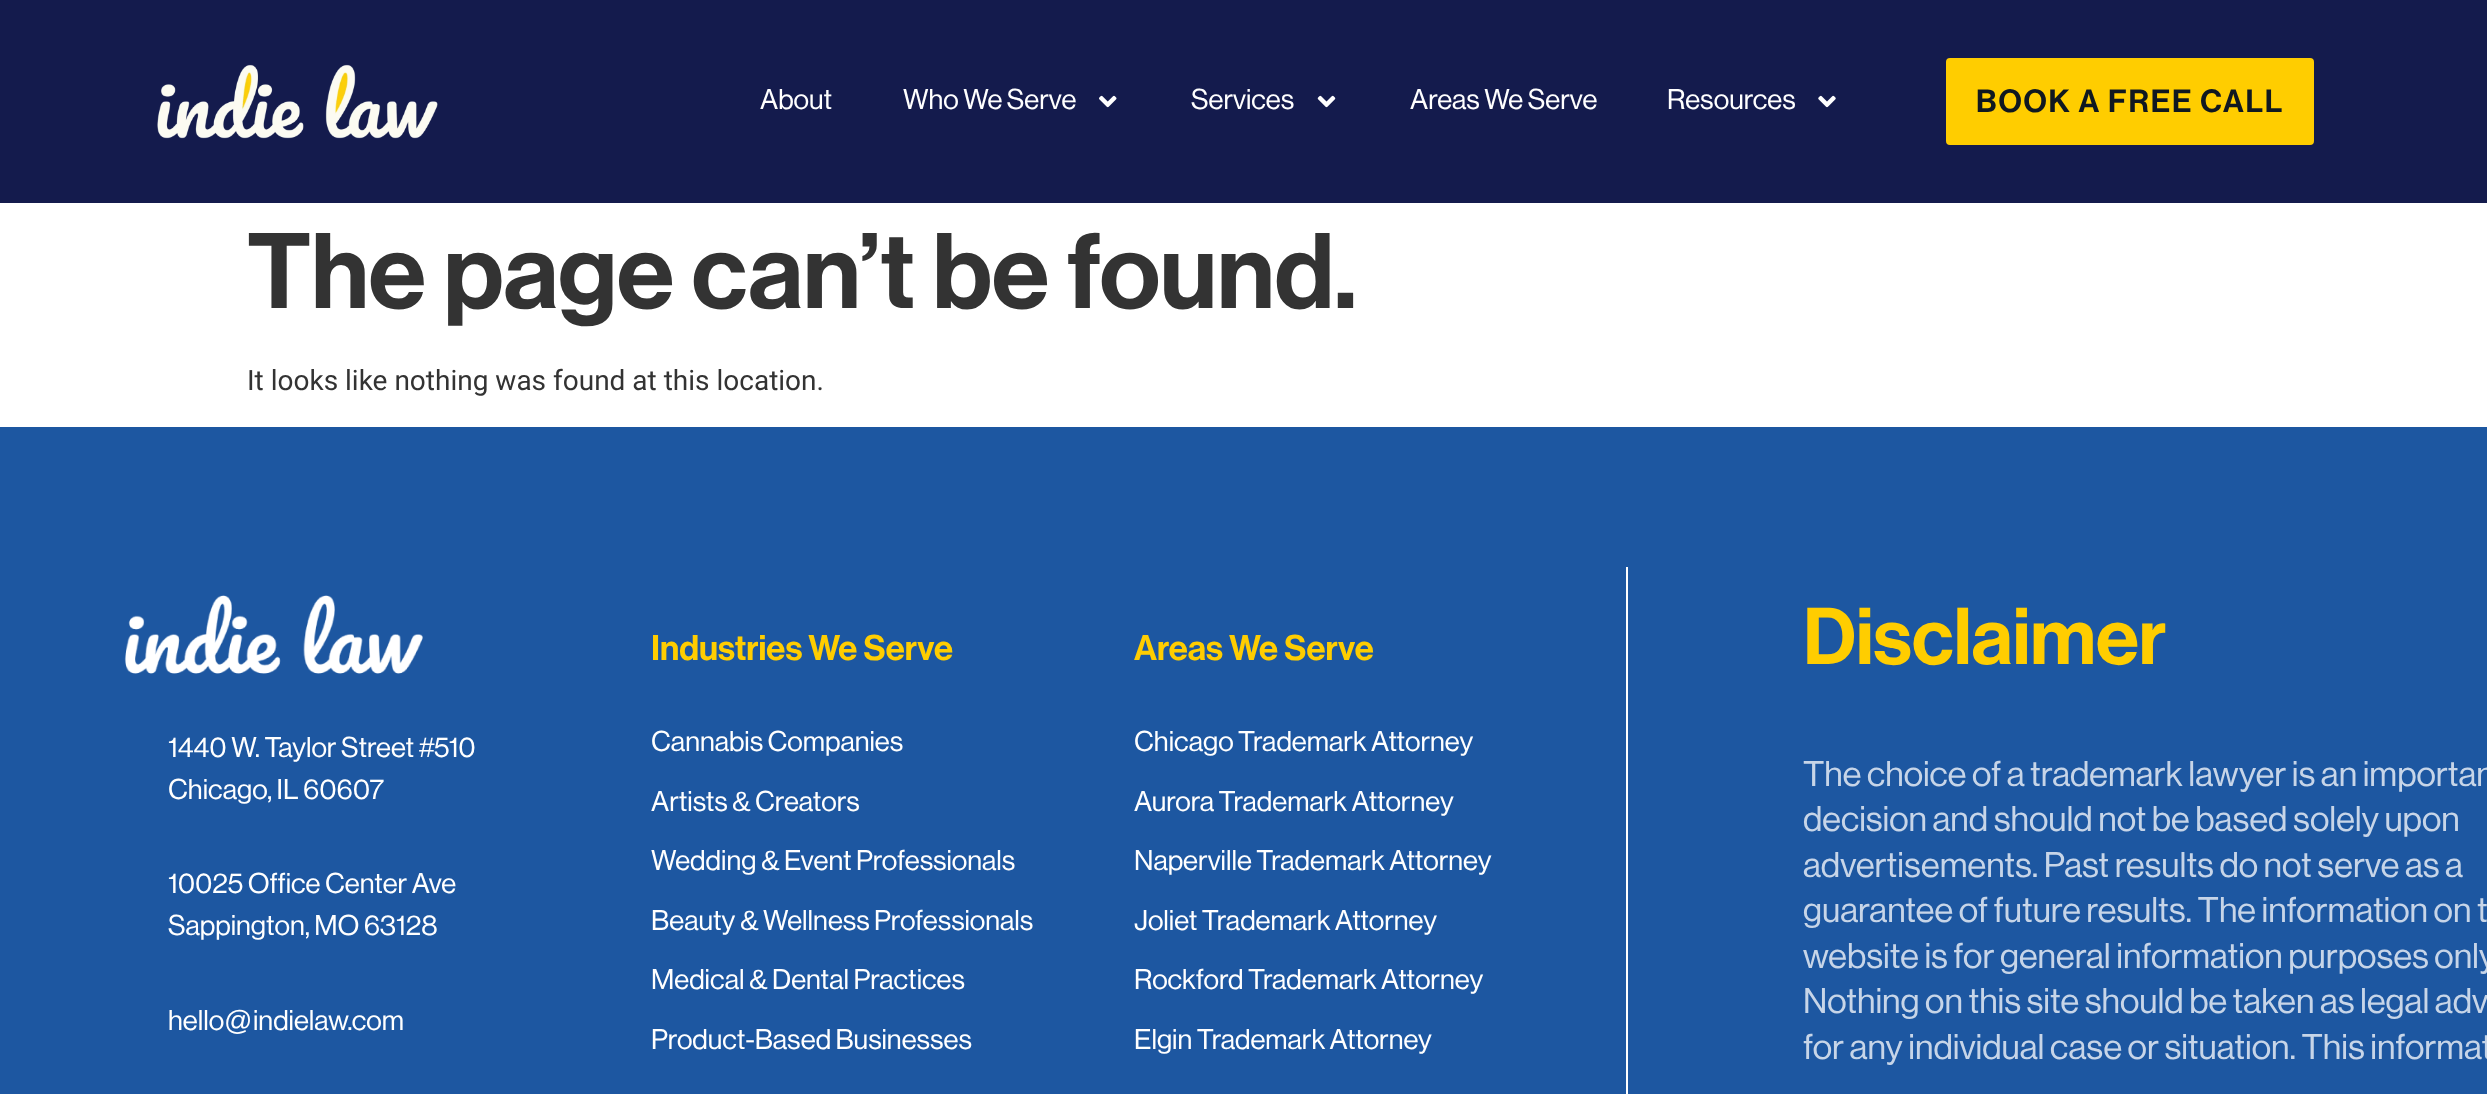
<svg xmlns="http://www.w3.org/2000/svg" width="2487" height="1094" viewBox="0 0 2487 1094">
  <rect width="100%" height="100%" fill="#ffffff"/>
  <rect x="0" y="0" width="2487" height="203" fill="#141b4d"/>
  <image x="157" y="64" width="281" height="75" href="img1.png"/>
  <text x="760" y="109" font-family="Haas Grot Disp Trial" font-size="28" fill="#ffffff">About</text>
  <text x="903" y="109" font-family="Haas Grot Disp Trial" font-size="28" fill="#ffffff">Who We Serve</text>
  <image x="1099" y="95" width="18" height="13" href="img2.png"/>
  <text x="1191" y="109" font-family="Haas Grot Disp Trial" font-size="28" fill="#ffffff">Services</text>
  <image x="1317" y="95" width="19" height="13" href="img3.png"/>
  <text x="1410" y="109" font-family="Haas Grot Disp Trial" font-size="28" fill="#ffffff">Areas We Serve</text>
  <text x="1667" y="109" font-family="Haas Grot Disp Trial" font-size="28" fill="#ffffff">Resources</text>
  <image x="1818" y="95" width="18" height="13" href="img4.png"/>
  <rect x="1948" y="60" width="364" height="83" rx="2" fill="#ffcd00" stroke="#ffcd00" stroke-width="4"/>
  <text x="1976" y="112" font-family="Haas Grot Disp Trial" font-size="31.5" font-weight="500" letter-spacing="1.75" fill="#101820">BOOK A FREE CALL</text>
  <text x="247" y="308" font-family="Haas Grot Disp Trial" font-size="105" font-weight="500" fill="#333333">The page can’t be found.</text>
  <text x="247" y="390" font-family="Roboto" font-size="28" fill="#333333">It looks like nothing was found at this location.</text>
  <rect x="0" y="427" width="2487" height="667" fill="#1d57a1"/>
  <image x="124" y="595" width="299" height="79" href="img5.png"/>
  <text x="168" y="757" font-family="Haas Grot Disp Trial" font-size="28" fill="#ffffff">1440 W. Taylor Street</text>
  <text x="419" y="757" font-family="Liberation Sans" font-size="28" fill="#ffffff">#</text>
  <text x="434" y="757" font-family="Haas Grot Disp Trial" font-size="28" fill="#ffffff">510</text>
  <text x="168" y="799" font-family="Haas Grot Disp Trial" font-size="28" fill="#ffffff">Chicago, IL 60607</text>
  <text x="168" y="893" font-family="Haas Grot Disp Trial" font-size="28" fill="#ffffff">10025 Office Center Ave</text>
  <text x="168" y="935" font-family="Haas Grot Disp Trial" font-size="28" fill="#ffffff">Sappington, MO 63128</text>
  <text x="168" y="1030" font-family="Haas Grot Disp Trial" font-size="28" fill="#ffffff">hello</text>
  <text x="224" y="1030" font-family="Liberation Sans" font-size="28" fill="#ffffff">@</text>
  <text x="253" y="1030" font-family="Haas Grot Disp Trial" font-size="28" fill="#ffffff">indielaw.com</text>
  <text x="651" y="660" font-family="Haas Grot Disp Trial" font-size="35" font-weight="500" fill="#ffcd00">Industries We Serve</text>
  <text x="651" y="751" font-family="Haas Grot Disp Trial" font-size="28" fill="#ffffff">Cannabis Companies</text>
  <text x="651" y="811" font-family="Haas Grot Disp Trial" font-size="28" fill="#ffffff">Artists</text>
  <text x="732" y="811" font-family="Liberation Sans" font-size="28" fill="#ffffff">&amp;</text>
  <text x="755" y="811" font-family="Haas Grot Disp Trial" font-size="28" fill="#ffffff">Creators</text>
  <text x="651" y="870" font-family="Haas Grot Disp Trial" font-size="28" fill="#ffffff">Wedding</text>
  <text x="761" y="870" font-family="Liberation Sans" font-size="28" fill="#ffffff">&amp;</text>
  <text x="784" y="870" font-family="Haas Grot Disp Trial" font-size="28" fill="#ffffff">Event Professionals</text>
  <text x="651" y="930" font-family="Haas Grot Disp Trial" font-size="28" fill="#ffffff">Beauty</text>
  <text x="740" y="930" font-family="Liberation Sans" font-size="28" fill="#ffffff">&amp;</text>
  <text x="763" y="930" font-family="Haas Grot Disp Trial" font-size="28" fill="#ffffff">Wellness Professionals</text>
  <text x="651" y="989" font-family="Haas Grot Disp Trial" font-size="28" fill="#ffffff">Medical</text>
  <text x="749" y="989" font-family="Liberation Sans" font-size="28" fill="#ffffff">&amp;</text>
  <text x="772" y="989" font-family="Haas Grot Disp Trial" font-size="28" fill="#ffffff">Dental Practices</text>
  <text x="651" y="1049" font-family="Haas Grot Disp Trial" font-size="28" fill="#ffffff">Product-Based Businesses</text>
  <rect x="1626" y="567" width="2" height="527" fill="#ffffff"/>
  <text x="1134" y="660" font-family="Haas Grot Disp Trial" font-size="35" font-weight="500" fill="#ffcd00">Areas We Serve</text>
  <text x="1134" y="751" font-family="Haas Grot Disp Trial" font-size="28" fill="#ffffff">Chicago Trademark Attorney</text>
  <text x="1134" y="811" font-family="Haas Grot Disp Trial" font-size="28" fill="#ffffff">Aurora Trademark Attorney</text>
  <text x="1134" y="870" font-family="Haas Grot Disp Trial" font-size="28" fill="#ffffff">Naperville Trademark Attorney</text>
  <text x="1134" y="930" font-family="Haas Grot Disp Trial" font-size="28" fill="#ffffff">Joliet Trademark Attorney</text>
  <text x="1134" y="989" font-family="Haas Grot Disp Trial" font-size="28" fill="#ffffff">Rockford Trademark Attorney</text>
  <text x="1134" y="1049" font-family="Haas Grot Disp Trial" font-size="28" fill="#ffffff">Elgin Trademark Attorney</text>
  <text x="1803" y="664" font-family="Haas Grot Disp Trial" font-size="78.75" font-weight="500" fill="#ffcd00">Disclaimer</text>
  <text x="1803" y="786" font-family="Haas Grot Disp Trial" font-size="35" fill="#c7d5e8">The choice of a trademark lawyer is an importan</text>
  <text x="1803" y="831" font-family="Haas Grot Disp Trial" font-size="35" fill="#c7d5e8">decision and should not be based solely upon</text>
  <text x="1803" y="877" font-family="Haas Grot Disp Trial" font-size="35" fill="#c7d5e8">advertisements. Past results do not serve as a</text>
  <text x="1803" y="922" font-family="Haas Grot Disp Trial" font-size="35" fill="#c7d5e8">guarantee of future results. The information on t</text>
  <text x="1803" y="968" font-family="Haas Grot Disp Trial" font-size="35" fill="#c7d5e8">website is for general information purposes only</text>
  <text x="1803" y="1013" font-family="Haas Grot Disp Trial" font-size="35" fill="#c7d5e8">Nothing on this site should be taken as legal adv</text>
  <text x="1803" y="1059" font-family="Haas Grot Disp Trial" font-size="35" fill="#c7d5e8">for any individual case or situation. This informat</text>
</svg>
